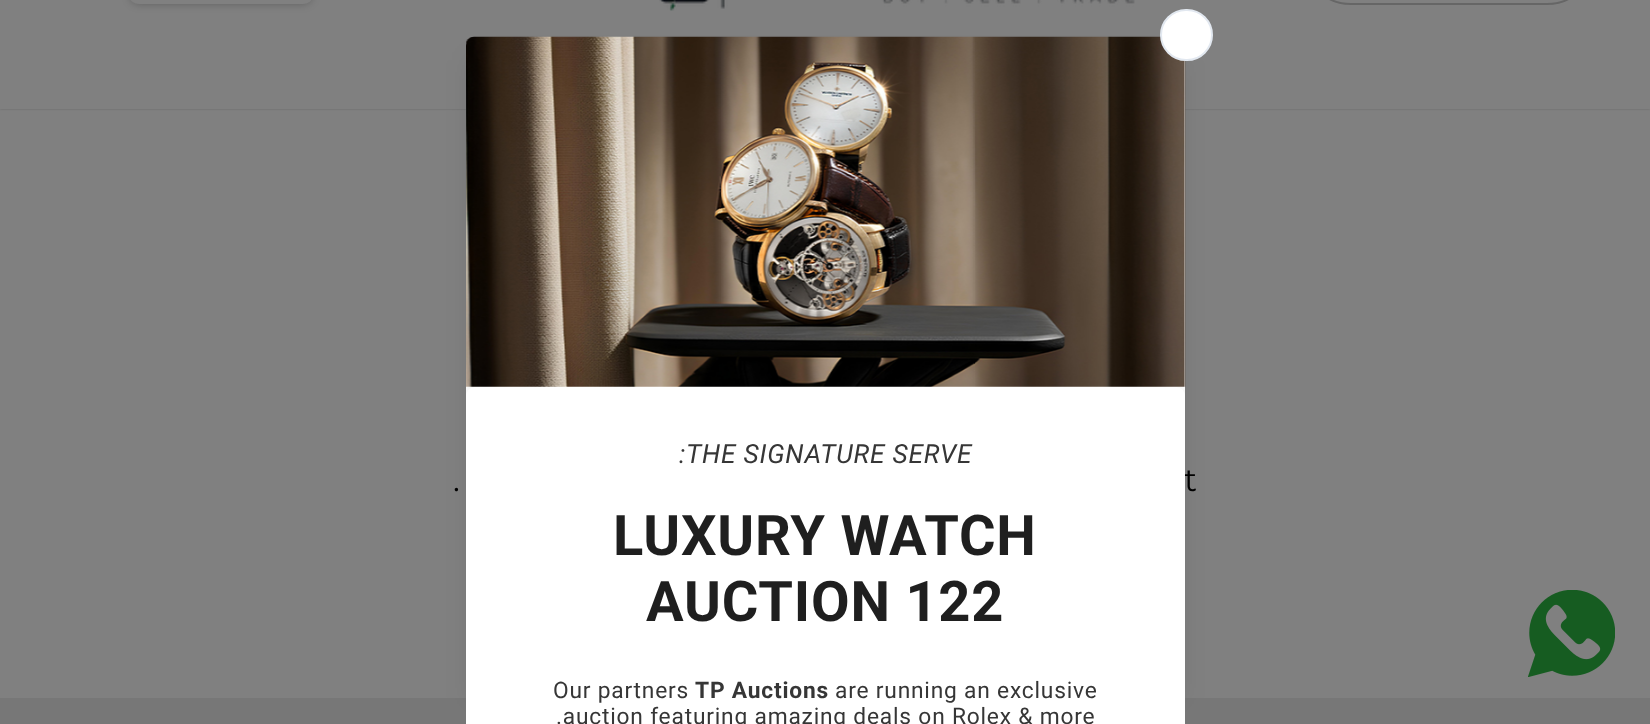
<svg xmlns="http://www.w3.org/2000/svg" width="1650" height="724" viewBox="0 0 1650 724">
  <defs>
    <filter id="blur1" x="-50%" y="-200%" width="200%" height="500%"><feGaussianBlur stdDeviation="1"/></filter>
    <filter id="blur2" x="-50%" y="-200%" width="200%" height="500%"><feGaussianBlur stdDeviation="13"/></filter>
    <clipPath id="clip1"><rect x="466" y="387" width="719" height="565"/></clipPath>
    <filter id="blur3" x="-50%" y="-200%" width="200%" height="500%"><feGaussianBlur stdDeviation="17.5"/></filter>
    <filter id="blur4" x="-50%" y="-200%" width="200%" height="500%"><feGaussianBlur stdDeviation="4.5"/></filter>
  </defs>
  <rect width="100%" height="100%" fill="#808080"/>
  <rect x="0" y="-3" width="1650" height="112" fill="#000000" fill-opacity="0.2" filter="url(#blur1)"/>
  <rect x="0" y="0" width="1650" height="109" fill="#808080"/>
  <rect x="0" y="698" width="1650" height="26" fill="#777777"/>
  <rect x="471" y="60" width="709" height="640" rx="4" fill="#000000" fill-opacity="0.1" filter="url(#blur2)"/>
  <text x="1184" y="491" font-family="Montserrat" font-size="32" letter-spacing="0.8" fill="#000000">t</text>
  <rect x="466" y="37" width="719" height="651" rx="9" fill="#ffffff"/>
  <image x="466" y="36" width="720" height="351" href="img1.png"/>
  <rect x="1161" y="10" width="51" height="50" rx="25" fill="#ffffff" stroke="#e2e8f0" stroke-width="2"/>
  <g clip-path="url(#clip1)">
    <rect x="471" y="392" width="709" height="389" rx="4" fill="#000000" fill-opacity="0.12" filter="url(#blur3)"/>
  </g>
  <rect x="466" y="387" width="719" height="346" rx="9" fill="#ffffff"/>
  <text x="679" y="463" font-family="Roboto" font-size="26.25" font-style="italic" letter-spacing="0.8" fill="#363636">:THE SIGNATURE SERVE</text>
  <text x="613" y="555" font-family="Roboto" font-size="56" font-weight="bold" letter-spacing="0.8" fill="#1f1f1f">LUXURY WATCH</text>
  <text x="646" y="621" font-family="Roboto" font-size="56" font-weight="bold" letter-spacing="0.8" fill="#1f1f1f">AUCTION 122</text>
  <text x="553" y="698" font-family="Roboto" font-size="22.75" letter-spacing="0.8" fill="#363636">Our partners</text>
  <text x="695" y="698" font-family="Roboto" font-size="22.75" font-weight="bold" letter-spacing="0.8" fill="#363636">TP Auctions</text>
  <text x="835" y="698" font-family="Roboto" font-size="22.75" letter-spacing="0.8" fill="#363636">are running an exclusive</text>
  <text x="556" y="724" font-family="Roboto" font-size="22.75" letter-spacing="0.8" fill="#363636">.auction featuring amazing deals on Rolex &amp; more</text>
  <rect x="130" y="-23" width="182" height="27" rx="9" fill="#11161b" fill-opacity="0.25" filter="url(#blur4)"/>
  <rect x="130" y="-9" width="182" height="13" rx="9" fill="#808080"/>
  <image x="659" y="0" width="476" height="11" href="img2.png"/>
  <rect x="1319" y="-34" width="260" height="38" rx="32" fill="none" stroke="#666666" stroke-width="2"/>
  <text x="453" y="491" font-family="Montserrat" font-size="32" letter-spacing="0.8" fill="#000000">.</text>
  <image x="1528" y="590" width="87" height="87" href="img3.png"/>
</svg>
